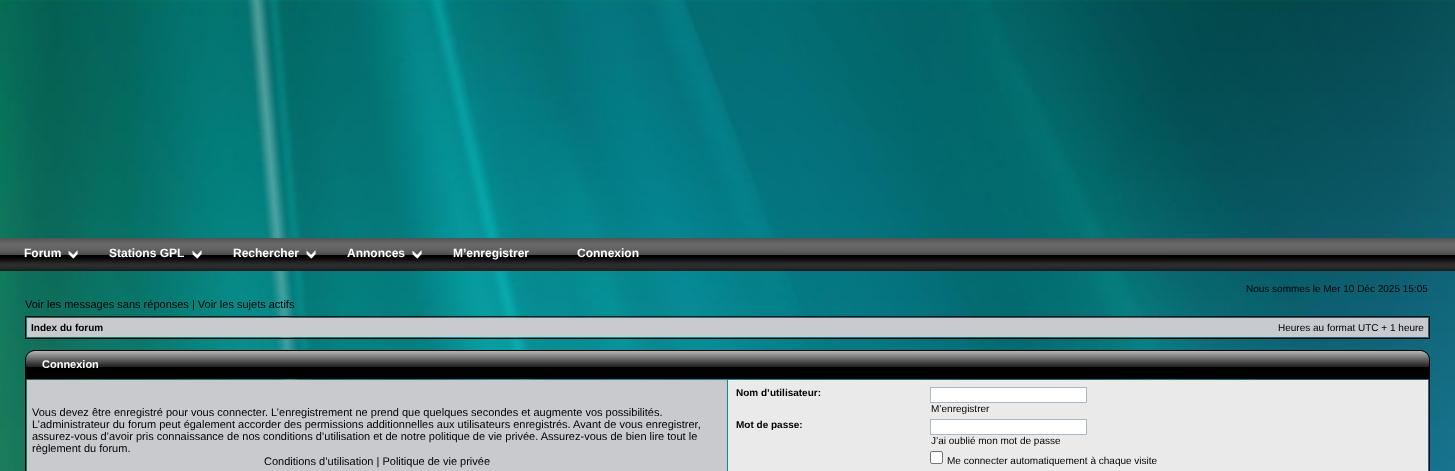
<svg xmlns="http://www.w3.org/2000/svg" width="1455" height="471" viewBox="0 0 1455 471">
  <rect width="100%" height="100%" fill="#ffffff"/>
  <image x="0" y="0" width="1455" height="471" href="img1.png"/>
  <image x="0" y="238" width="1455" height="33" href="img2.png"/>
  <image x="68" y="250" width="11" height="9" href="img3.png"/>
  <text x="24" y="257" font-family="Liberation Sans" font-size="12" font-weight="bold" fill="#ffffff">Forum</text>
  <image x="191" y="250" width="11" height="9" href="img4.png"/>
  <text x="109" y="257" font-family="Liberation Sans" font-size="12" font-weight="bold" fill="#ffffff">Stations GPL</text>
  <image x="306" y="250" width="11" height="9" href="img5.png"/>
  <text x="233" y="257" font-family="Liberation Sans" font-size="12" font-weight="bold" fill="#ffffff">Rechercher</text>
  <image x="412" y="250" width="10" height="9" href="img6.png"/>
  <text x="347" y="257" font-family="Liberation Sans" font-size="12" font-weight="bold" fill="#ffffff">Annonces</text>
  <text x="453" y="257" font-family="Liberation Sans" font-size="12" font-weight="bold" fill="#ffffff">M’enregistrer</text>
  <text x="577" y="257" font-family="Liberation Sans" font-size="12" font-weight="bold" fill="#ffffff">Connexion</text>
  <text x="1246" y="292" font-family="Liberation Sans" font-size="10" fill="#000000">Nous sommes le Mer 10 Déc 2025 15:05</text>
  <text x="25" y="308" font-family="Liberation Sans" font-size="11" fill="#000000">Voir les messages sans réponses | Voir les sujets actifs</text>
  <rect x="25.5" y="316.5" width="1404" height="22" fill="none" stroke="#000000"/>
  <rect x="27" y="318" width="1401" height="19" fill="#c8cace"/>
  <text x="31" y="331" font-family="Liberation Sans" font-size="10" font-weight="bold" fill="#000000">Index du forum</text>
  <text x="1278" y="331" font-family="Liberation Sans" font-size="10" fill="#000000">Heures au format UTC + 1 heure</text>
  <image x="25" y="350" width="17" height="28" href="img7.png"/>
  <image x="42" y="350" width="1372" height="28" href="img8.png"/>
  <text x="42" y="368" font-family="Liberation Sans" font-size="11" font-weight="bold" fill="#ffffff">Connexion</text>
  <image x="1414" y="350" width="16" height="28" href="img9.png"/>
  <rect x="25.5" y="378.5" width="1404" height="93" fill="none" stroke="#000000"/>
  <rect x="27" y="380" width="700" height="91" fill="#c8cace"/>
  <text x="32" y="416" font-family="Liberation Sans" font-size="11" fill="#000000">Vous devez être enregistré pour vous connecter. L’enregistrement ne prend que quelques secondes et augmente vos possibilités.</text>
  <text x="32" y="428" font-family="Liberation Sans" font-size="11" fill="#000000">L’administrateur du forum peut également accorder des permissions additionnelles aux utilisateurs enregistrés. Avant de vous enregistrer,</text>
  <text x="32" y="440" font-family="Liberation Sans" font-size="11" fill="#000000">assurez-vous d’avoir pris connaissance de nos conditions d’utilisation et de notre politique de vie privée. Assurez-vous de bien lire tout le</text>
  <text x="32" y="452" font-family="Liberation Sans" font-size="11" fill="#000000">règlement du forum.</text>
  <text x="264" y="465" font-family="Liberation Sans" font-size="11" fill="#000000">Conditions d’utilisation | Politique de vie privée</text>
  <rect x="728" y="380" width="700" height="91" fill="#eaeaea"/>
  <text x="736" y="396" font-family="Liberation Sans" font-size="10" font-weight="bold" fill="#000000">Nom d’utilisateur:</text>
  <rect x="930.5" y="387.5" width="156" height="15" fill="#ffffff" stroke="#a9b8c2"/>
  <text x="931" y="412" font-family="Liberation Sans" font-size="10" fill="#000000">M’enregistrer</text>
  <text x="736" y="428" font-family="Liberation Sans" font-size="10" font-weight="bold" fill="#000000">Mot de passe:</text>
  <rect x="930.5" y="419.5" width="156" height="15" fill="#ffffff" stroke="#a9b8c2"/>
  <text x="931" y="444" font-family="Liberation Sans" font-size="10" fill="#000000">J’ai oublié mon mot de passe</text>
  <rect x="930.5" y="451.5" width="12" height="12" rx="1.5" fill="#ffffff" stroke="#767676"/>
  <text x="947" y="464" font-family="Liberation Sans" font-size="10" fill="#000000">Me connecter automatiquement à chaque visite</text>
</svg>
